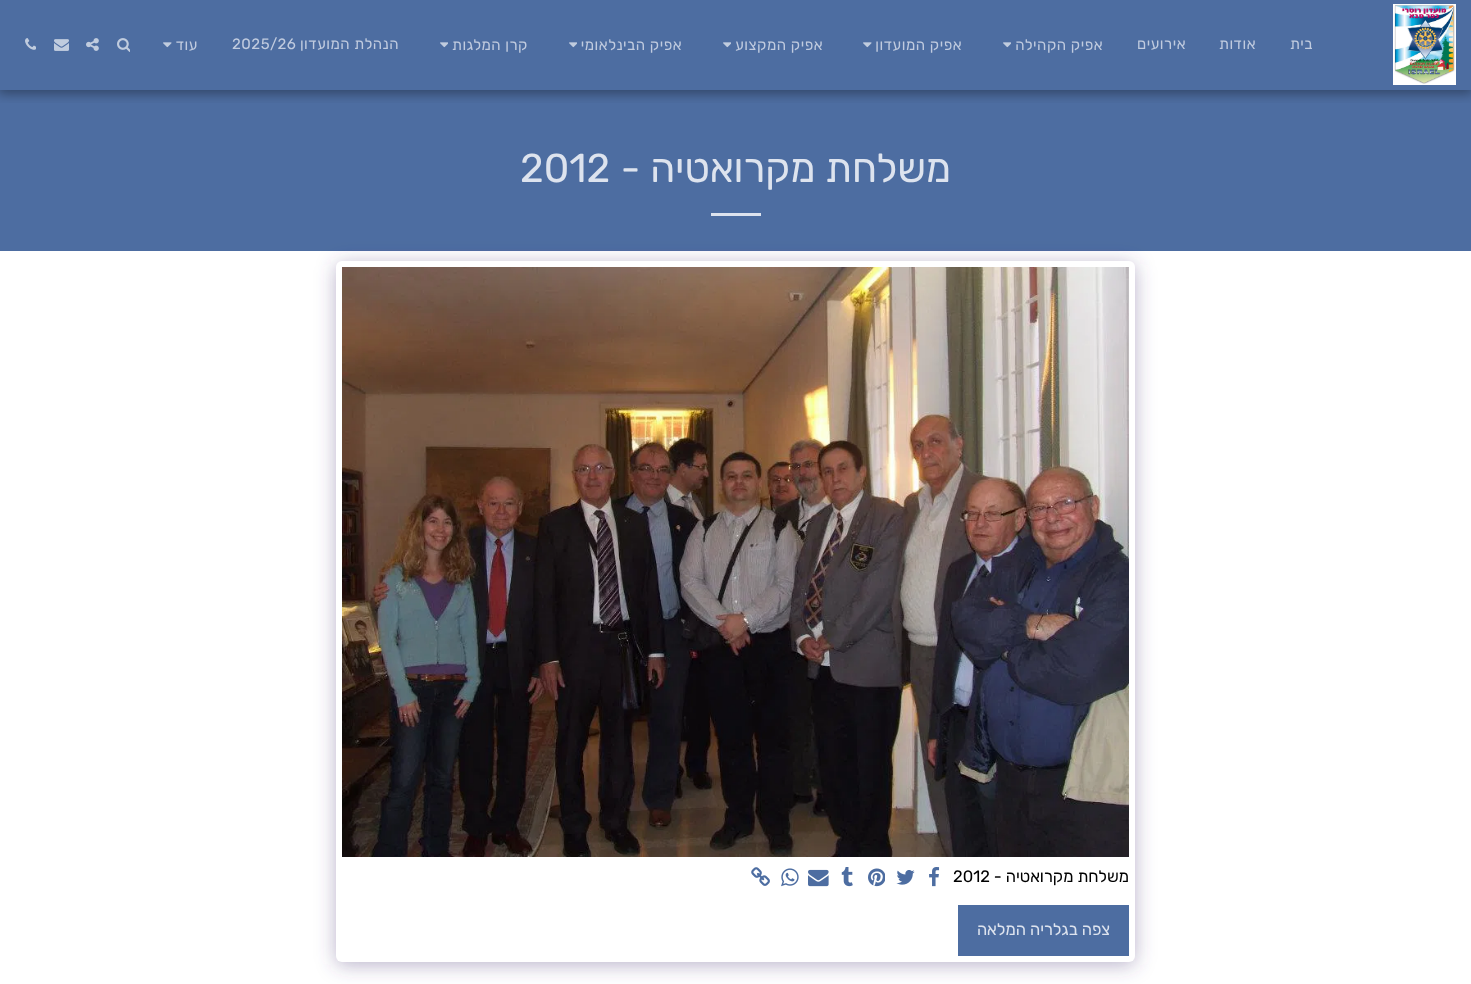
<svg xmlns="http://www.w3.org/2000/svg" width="1471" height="984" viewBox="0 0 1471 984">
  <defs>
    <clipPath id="clip1"><rect x="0" y="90" width="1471" height="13"/></clipPath>
    <filter id="blur1" x="-50%" y="-200%" width="200%" height="500%"><feGaussianBlur stdDeviation="6"/></filter>
    <filter id="blur2" x="-50%" y="-200%" width="200%" height="500%"><feGaussianBlur stdDeviation="10"/></filter>
  </defs>
  <rect width="100%" height="100%" fill="#4d6da1"/>
  <g clip-path="url(#clip1)">
    <rect x="-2" y="0" width="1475" height="94" fill="#000000" fill-opacity="0.35" filter="url(#blur1)"/>
  </g>
  <image x="1393" y="4" width="63" height="81" href="img1.png"/>
  <text x="1313" y="49" font-family="Rubik" font-size="15" letter-spacing="0.5" direction="rtl" fill="#c0cbdf">בית</text>
  <text x="1256" y="49" font-family="Rubik" font-size="15" letter-spacing="0.5" direction="rtl" fill="#c0cbdf">אודות</text>
  <text x="1186" y="49" font-family="Rubik" font-size="15" letter-spacing="0.5" direction="rtl" fill="#c0cbdf">אירועים</text>
  <text x="1103" y="50" font-family="Rubik" font-size="15" letter-spacing="0.5" direction="rtl" fill="#c0cbdf">אפיק הקהילה</text>
  <image x="1003" y="42" width="8" height="6" href="img2.png"/>
  <text x="962" y="50" font-family="Rubik" font-size="15" letter-spacing="0.5" direction="rtl" fill="#c0cbdf">אפיק המועדון</text>
  <image x="863" y="42" width="9" height="6" href="img3.png"/>
  <text x="823" y="50" font-family="Rubik" font-size="15" letter-spacing="0.5" direction="rtl" fill="#c0cbdf">אפיק המקצוע</text>
  <image x="723" y="42" width="8" height="6" href="img2.png"/>
  <text x="682" y="50" font-family="Rubik" font-size="15" letter-spacing="0.5" direction="rtl" fill="#c0cbdf">אפיק הבינלאומי</text>
  <image x="569" y="42" width="8" height="6" href="img2.png"/>
  <text x="528" y="50" font-family="Rubik" font-size="15" letter-spacing="0.5" direction="rtl" fill="#c0cbdf">קרן המלגות</text>
  <image x="440" y="42" width="8" height="6" href="img2.png"/>
  <text x="399" y="49" font-family="Rubik" font-size="15" letter-spacing="0.5" direction="rtl" fill="#c0cbdf">הנהלת המועדון</text>
  <text x="232" y="49" font-family="Rubik" font-size="15" letter-spacing="0.5" fill="#c0cbdf">2025/26</text>
  <text x="198" y="50" font-family="Rubik" font-size="15" letter-spacing="0.5" direction="rtl" fill="#c0cbdf">עוד</text>
  <image x="163" y="42" width="9" height="6" href="img3.png"/>
  <image x="117" y="38" width="13" height="14" href="img4.png"/>
  <image x="86" y="38" width="13" height="13" href="img5.png"/>
  <image x="54" y="39" width="15" height="12" href="img6.png"/>
  <image x="25" y="38" width="11" height="12" href="img7.png"/>
  <rect x="0" y="251" width="1471" height="733" fill="#ffffff"/>
  <text x="951" y="182" font-family="Rubik" font-size="40.25" direction="rtl" fill="#dde3ee">משלחת מקרואטיה -</text>
  <text x="520" y="182" font-family="Rubik" font-size="40.25" fill="#dde3ee">2012</text>
  <rect x="711" y="213" width="50" height="3" fill="#dde3ee"/>
  <rect x="336" y="264" width="799" height="701" rx="6" fill="#4d3f7a" fill-opacity="0.4" filter="url(#blur2)"/>
  <rect x="336" y="261" width="799" height="701" rx="6" fill="#ffffff"/>
  <image x="342" y="267" width="787" height="590" href="img8.png"/>
  <text x="1129" y="882" font-family="Rubik" font-size="16.5" direction="rtl" fill="#000000">משלחת מקרואטיה -</text>
  <text x="953" y="882" font-family="Rubik" font-size="16.5" fill="#000000">2012</text>
  <image x="929" y="867" width="11" height="20" href="img9.png"/>
  <image x="896" y="870" width="19" height="15" href="img10.png"/>
  <image x="868" y="868" width="17" height="19" href="img11.png"/>
  <image x="841" y="867" width="12" height="20" href="img12.png"/>
  <image x="808" y="869" width="21" height="18" href="img13.png"/>
  <image x="781" y="868" width="18" height="19" href="img14.png"/>
  <image x="751" y="867" width="19" height="19" href="img15.png"/>
  <rect x="958" y="905" width="171" height="51" fill="#4d6da1"/>
  <text x="1110" y="935" font-family="Rubik" font-size="16.5" direction="rtl" fill="#dde3ee">צפה בגלריה המלאה</text>
</svg>
